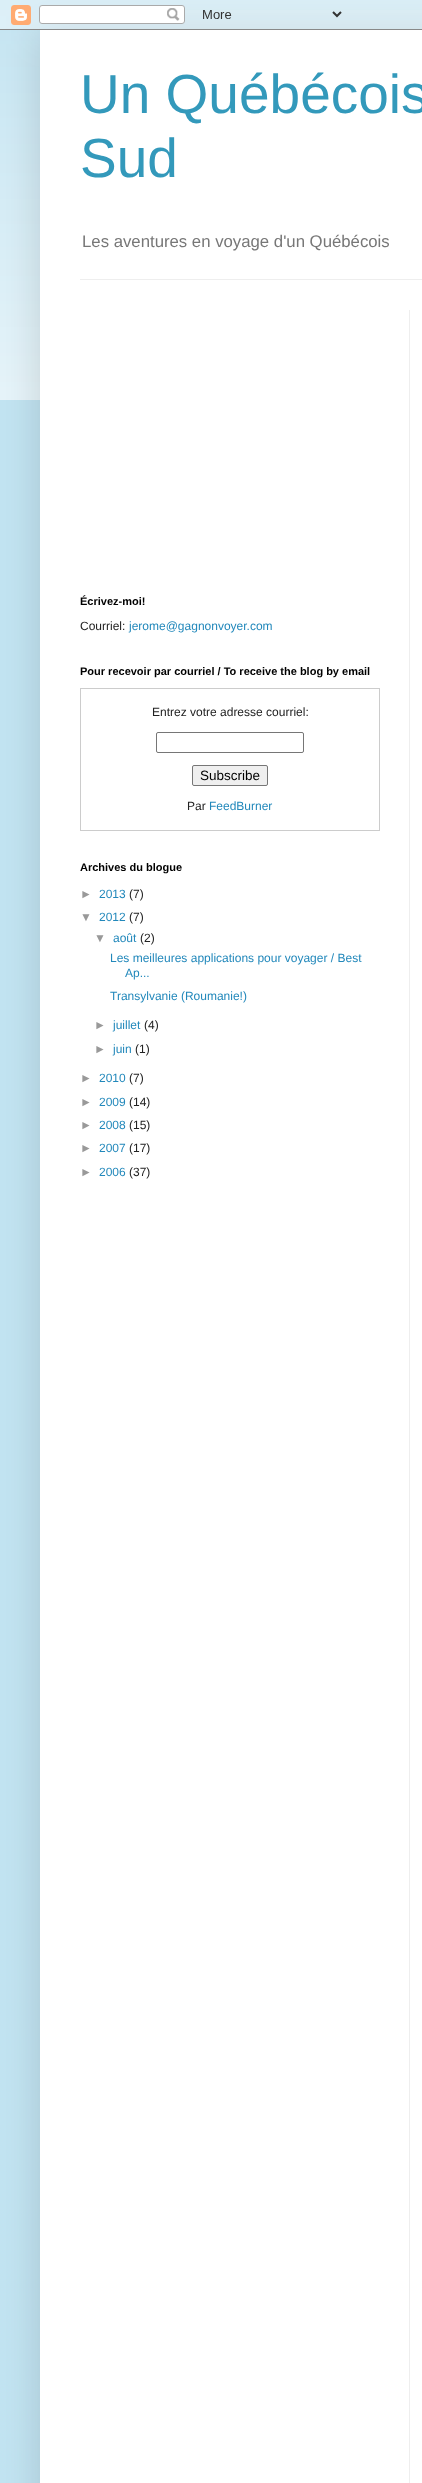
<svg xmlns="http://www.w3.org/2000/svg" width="422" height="2483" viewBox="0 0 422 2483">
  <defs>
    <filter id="blur1" x="-50%" y="-200%" width="200%" height="500%"><feGaussianBlur stdDeviation="20"/></filter>
  </defs>
  <rect width="100%" height="100%" fill="#c2e4f2"/>
  <image x="0" y="10" width="422" height="390" href="img2.png"/>
  <rect x="40" y="30" width="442" height="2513" fill="#000000" fill-opacity="0.15" filter="url(#blur1)"/>
  <image x="0" y="0" width="422" height="30" href="img1.png"/>
  <rect x="40" y="30" width="382" height="2453" fill="#ffffff"/>
  <text x="80" y="113" font-family="Liberation Sans" font-size="55" fill="#3399bb">Un Québécois</text>
  <text x="80" y="177" font-family="Liberation Sans" font-size="55" fill="#3399bb">Sud</text>
  <text x="82" y="247" font-family="Liberation Sans" font-size="16.75" fill="#777777">Les aventures en voyage d'un Québécois</text>
  <rect x="80" y="279" width="342" height="1" fill="#eeeeee"/>
  <text x="80" y="605" font-family="Liberation Sans" font-size="11" font-weight="bold" fill="#000000">Écrivez-moi!</text>
  <text x="80" y="630" font-family="Liberation Sans" font-size="12" fill="#222222">Courriel:</text>
  <text x="129" y="630" font-family="Liberation Sans" font-size="12" fill="#2288bb">jerome@gagnonvoyer.com</text>
  <text x="80" y="675" font-family="Liberation Sans" font-size="11" font-weight="bold" fill="#000000">Pour recevoir par courriel / To receive the blog by email</text>
  <rect x="80.5" y="688.5" width="299" height="142" fill="none" stroke="#cccccc"/>
  <text x="152" y="716" font-family="Liberation Sans" font-size="12" fill="#222222">Entrez votre adresse courriel:</text>
  <rect x="156.5" y="732.5" width="147" height="20" rx="1.5" fill="none" stroke="#767676"/>
  <rect x="192.5" y="765.5" width="75" height="20" rx="1.5" fill="#efefef" stroke="#767676"/>
  <text x="200" y="780" font-family="Liberation Sans" font-size="13.5" fill="#000000">Subscribe</text>
  <text x="187" y="810" font-family="Liberation Sans" font-size="12" fill="#222222">Par</text>
  <text x="209" y="810" font-family="Liberation Sans" font-size="12" fill="#2288bb">FeedBurner</text>
  <text x="80" y="871" font-family="Liberation Sans" font-size="11" font-weight="bold" fill="#000000">Archives du blogue</text>
  <text x="80" y="898" font-family="Liberation Sans" font-size="12" fill="#999999">►</text>
  <text x="99" y="898" font-family="Liberation Sans" font-size="12" fill="#2288bb">2013</text>
  <text x="129" y="898" font-family="Liberation Sans" font-size="12" fill="#222222">(7)</text>
  <text x="80" y="921" font-family="Liberation Sans" font-size="12" fill="#999999">▼</text>
  <text x="99" y="921" font-family="Liberation Sans" font-size="12" fill="#2288bb">2012</text>
  <text x="129" y="921" font-family="Liberation Sans" font-size="12" fill="#222222">(7)</text>
  <text x="94" y="942" font-family="Liberation Sans" font-size="12" fill="#999999">▼</text>
  <text x="113" y="942" font-family="Liberation Sans" font-size="12" fill="#2288bb">août</text>
  <text x="140" y="942" font-family="Liberation Sans" font-size="12" fill="#222222">(2)</text>
  <text x="110" y="962" font-family="Liberation Sans" font-size="12" fill="#2288bb">Les meilleures applications pour voyager / Best</text>
  <text x="125" y="977" font-family="Liberation Sans" font-size="12" fill="#2288bb">Ap...</text>
  <text x="110" y="1000" font-family="Liberation Sans" font-size="12" fill="#2288bb">Transylvanie (Roumanie!)</text>
  <text x="94" y="1029" font-family="Liberation Sans" font-size="12" fill="#999999">►</text>
  <text x="113" y="1029" font-family="Liberation Sans" font-size="12" fill="#2288bb">juillet</text>
  <text x="144" y="1029" font-family="Liberation Sans" font-size="12" fill="#222222">(4)</text>
  <text x="94" y="1053" font-family="Liberation Sans" font-size="12" fill="#999999">►</text>
  <text x="113" y="1053" font-family="Liberation Sans" font-size="12" fill="#2288bb">juin</text>
  <text x="135" y="1053" font-family="Liberation Sans" font-size="12" fill="#222222">(1)</text>
  <text x="80" y="1082" font-family="Liberation Sans" font-size="12" fill="#999999">►</text>
  <text x="99" y="1082" font-family="Liberation Sans" font-size="12" fill="#2288bb">2010</text>
  <text x="129" y="1082" font-family="Liberation Sans" font-size="12" fill="#222222">(7)</text>
  <text x="80" y="1106" font-family="Liberation Sans" font-size="12" fill="#999999">►</text>
  <text x="99" y="1106" font-family="Liberation Sans" font-size="12" fill="#2288bb">2009</text>
  <text x="129" y="1106" font-family="Liberation Sans" font-size="12" fill="#222222">(14)</text>
  <text x="80" y="1129" font-family="Liberation Sans" font-size="12" fill="#999999">►</text>
  <text x="99" y="1129" font-family="Liberation Sans" font-size="12" fill="#2288bb">2008</text>
  <text x="129" y="1129" font-family="Liberation Sans" font-size="12" fill="#222222">(15)</text>
  <text x="80" y="1152" font-family="Liberation Sans" font-size="12" fill="#999999">►</text>
  <text x="99" y="1152" font-family="Liberation Sans" font-size="12" fill="#2288bb">2007</text>
  <text x="129" y="1152" font-family="Liberation Sans" font-size="12" fill="#222222">(17)</text>
  <text x="80" y="1176" font-family="Liberation Sans" font-size="12" fill="#999999">►</text>
  <text x="99" y="1176" font-family="Liberation Sans" font-size="12" fill="#2288bb">2006</text>
  <text x="129" y="1176" font-family="Liberation Sans" font-size="12" fill="#222222">(37)</text>
  <rect x="409" y="310" width="1" height="2173" fill="#eeeeee"/>
</svg>
